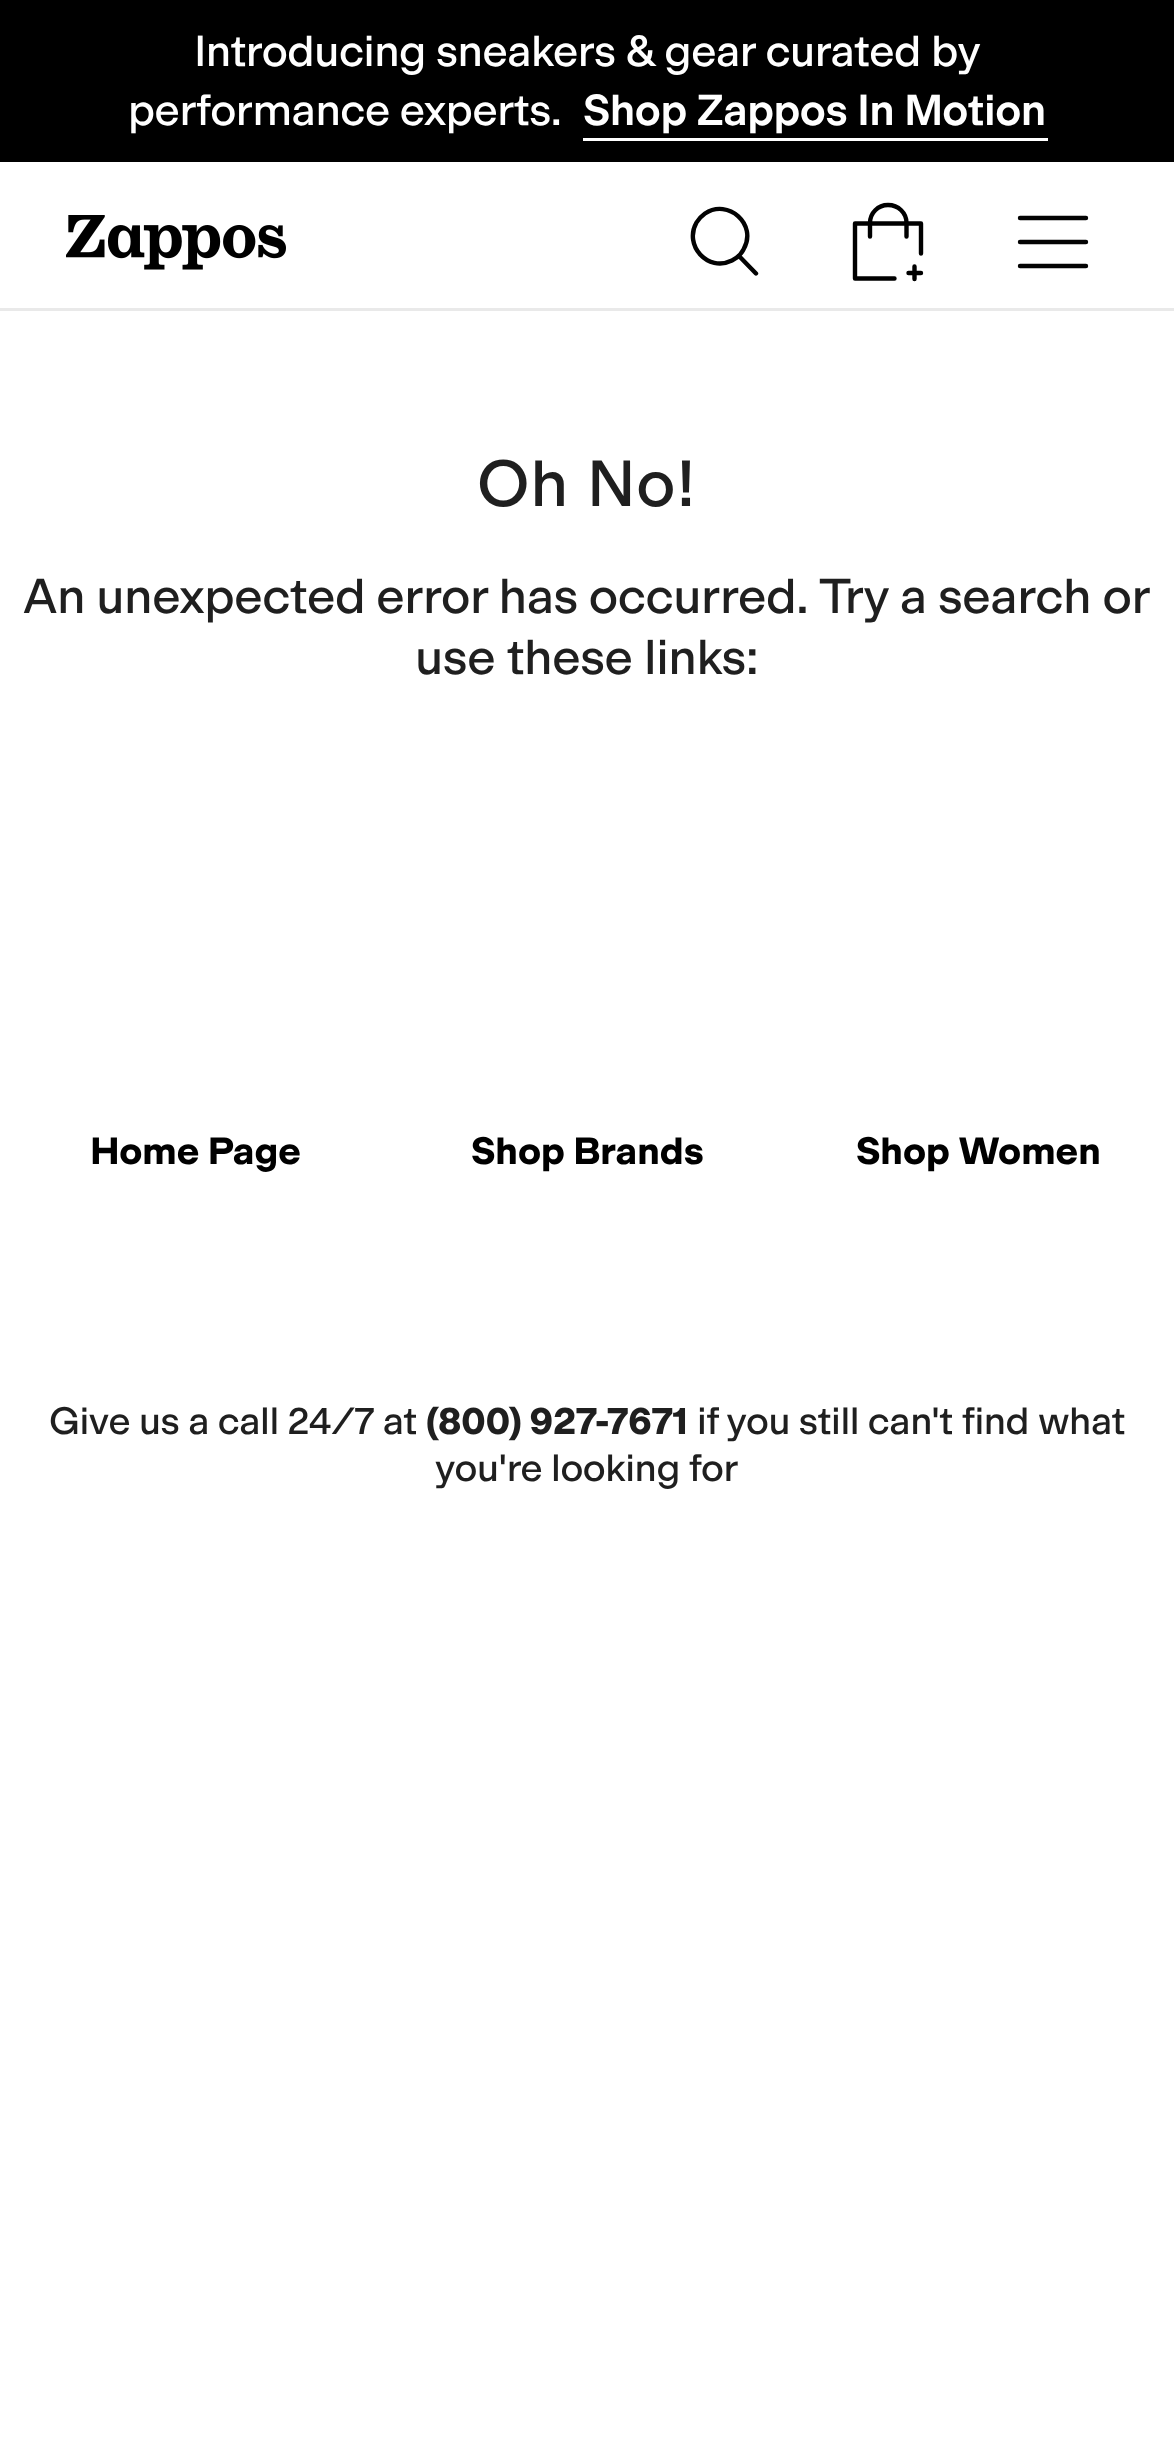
<svg xmlns="http://www.w3.org/2000/svg" width="1174" height="2451" viewBox="0 0 1174 2451">
  <rect width="100%" height="100%" fill="#ffffff"/>
  <rect x="0" y="0" width="1174" height="162" fill="#000000"/>
  <text x="194" y="66" font-family="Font" font-size="44" letter-spacing="-0.45" fill="#ffffff">Introducing sneakers &amp; gear curated by</text>
  <text x="128" y="125" font-family="Font" font-size="44" letter-spacing="-0.45" fill="#ffffff">performance experts.</text>
  <text x="583" y="125" font-family="Font" font-size="44" font-weight="500" letter-spacing="-0.45" fill="#ffffff">Shop Zappos In Motion</text>
  <rect x="583" y="138" width="465" height="3" fill="#ffffff"/>
  <rect x="0" y="308" width="1174" height="3" fill="#e9e9e9"/>
  <image x="66" y="215" width="220" height="55" href="img1.png"/>
  <path d="M696.5 222.5C683.5 245 707.5 272.5 732 260.5C737 258 741 254.5 743.5 249.5C758 224.5 728 198 705 213.5C701.5 216 698.5 219 696.5 222.5" fill="none" stroke="#030303" stroke-width="4.4" stroke-linecap="round" stroke-linejoin="round"/>
  <path d="M739 256L756 273.5" fill="none" stroke="#030303" stroke-width="4.4" stroke-linecap="round"/>
  <path d="M906.5 236.5V223C906.5 213 898.5 205 888 205C878 205 870 213 870 223V236.5M908.5 273H921M914.5 266.5V279" fill="none" stroke="#000000" stroke-width="4.4" stroke-linecap="round" stroke-linejoin="round"/>
  <path d="M921 253.5V223.5H855V278.5H894.5" fill="none" stroke="#000000" stroke-width="4.4" stroke-linecap="round" stroke-linejoin="round"/>
  <path d="M1020 266H1086M1020 242H1086M1020 218H1086" fill="none" stroke="#030303" stroke-width="4.4" stroke-linecap="round"/>
  <text x="477" y="506" font-family="Font" font-size="66" letter-spacing="1.25" fill="#1f1f1f">Oh No!</text>
  <text x="23" y="613" word-spacing="-0.5" font-family="Font" font-size="49.5" letter-spacing="-0.4" fill="#1f1f1f">An unexpected error has occurred.</text>
  <text x="819" y="613" font-family="Font" font-size="49.5" letter-spacing="-0.4" fill="#1f1f1f">Try a search or</text>
  <text x="415" y="674" font-family="Font" font-size="49.5" letter-spacing="-0.4" fill="#1f1f1f">use these links:</text>
  <text x="90" y="1164" font-family="Font" font-size="38.5" font-weight="bold" fill="#000000">Home Page</text>
  <text x="471" y="1164" font-family="Font" font-size="38.5" font-weight="bold" fill="#000000">Shop Brands</text>
  <text x="856" y="1164" font-family="Font" font-size="38.5" font-weight="bold" fill="#000000">Shop Women</text>
  <text x="49" y="1434" font-family="Font" font-size="38.5" letter-spacing="-0.4" fill="#1f1f1f">Give us a call 24/7 at</text>
  <text x="426" y="1434" font-family="Font" font-size="38.5" font-weight="bold" letter-spacing="-0.4" fill="#1f1f1f">(800) 927-7671</text>
  <text x="697" y="1434" font-family="Font" font-size="38.5" letter-spacing="-0.4" fill="#1f1f1f">if you still can't find what</text>
  <text x="435" y="1481" font-family="Font" font-size="38.5" letter-spacing="-0.4" fill="#1f1f1f">you're looking for</text>
</svg>
